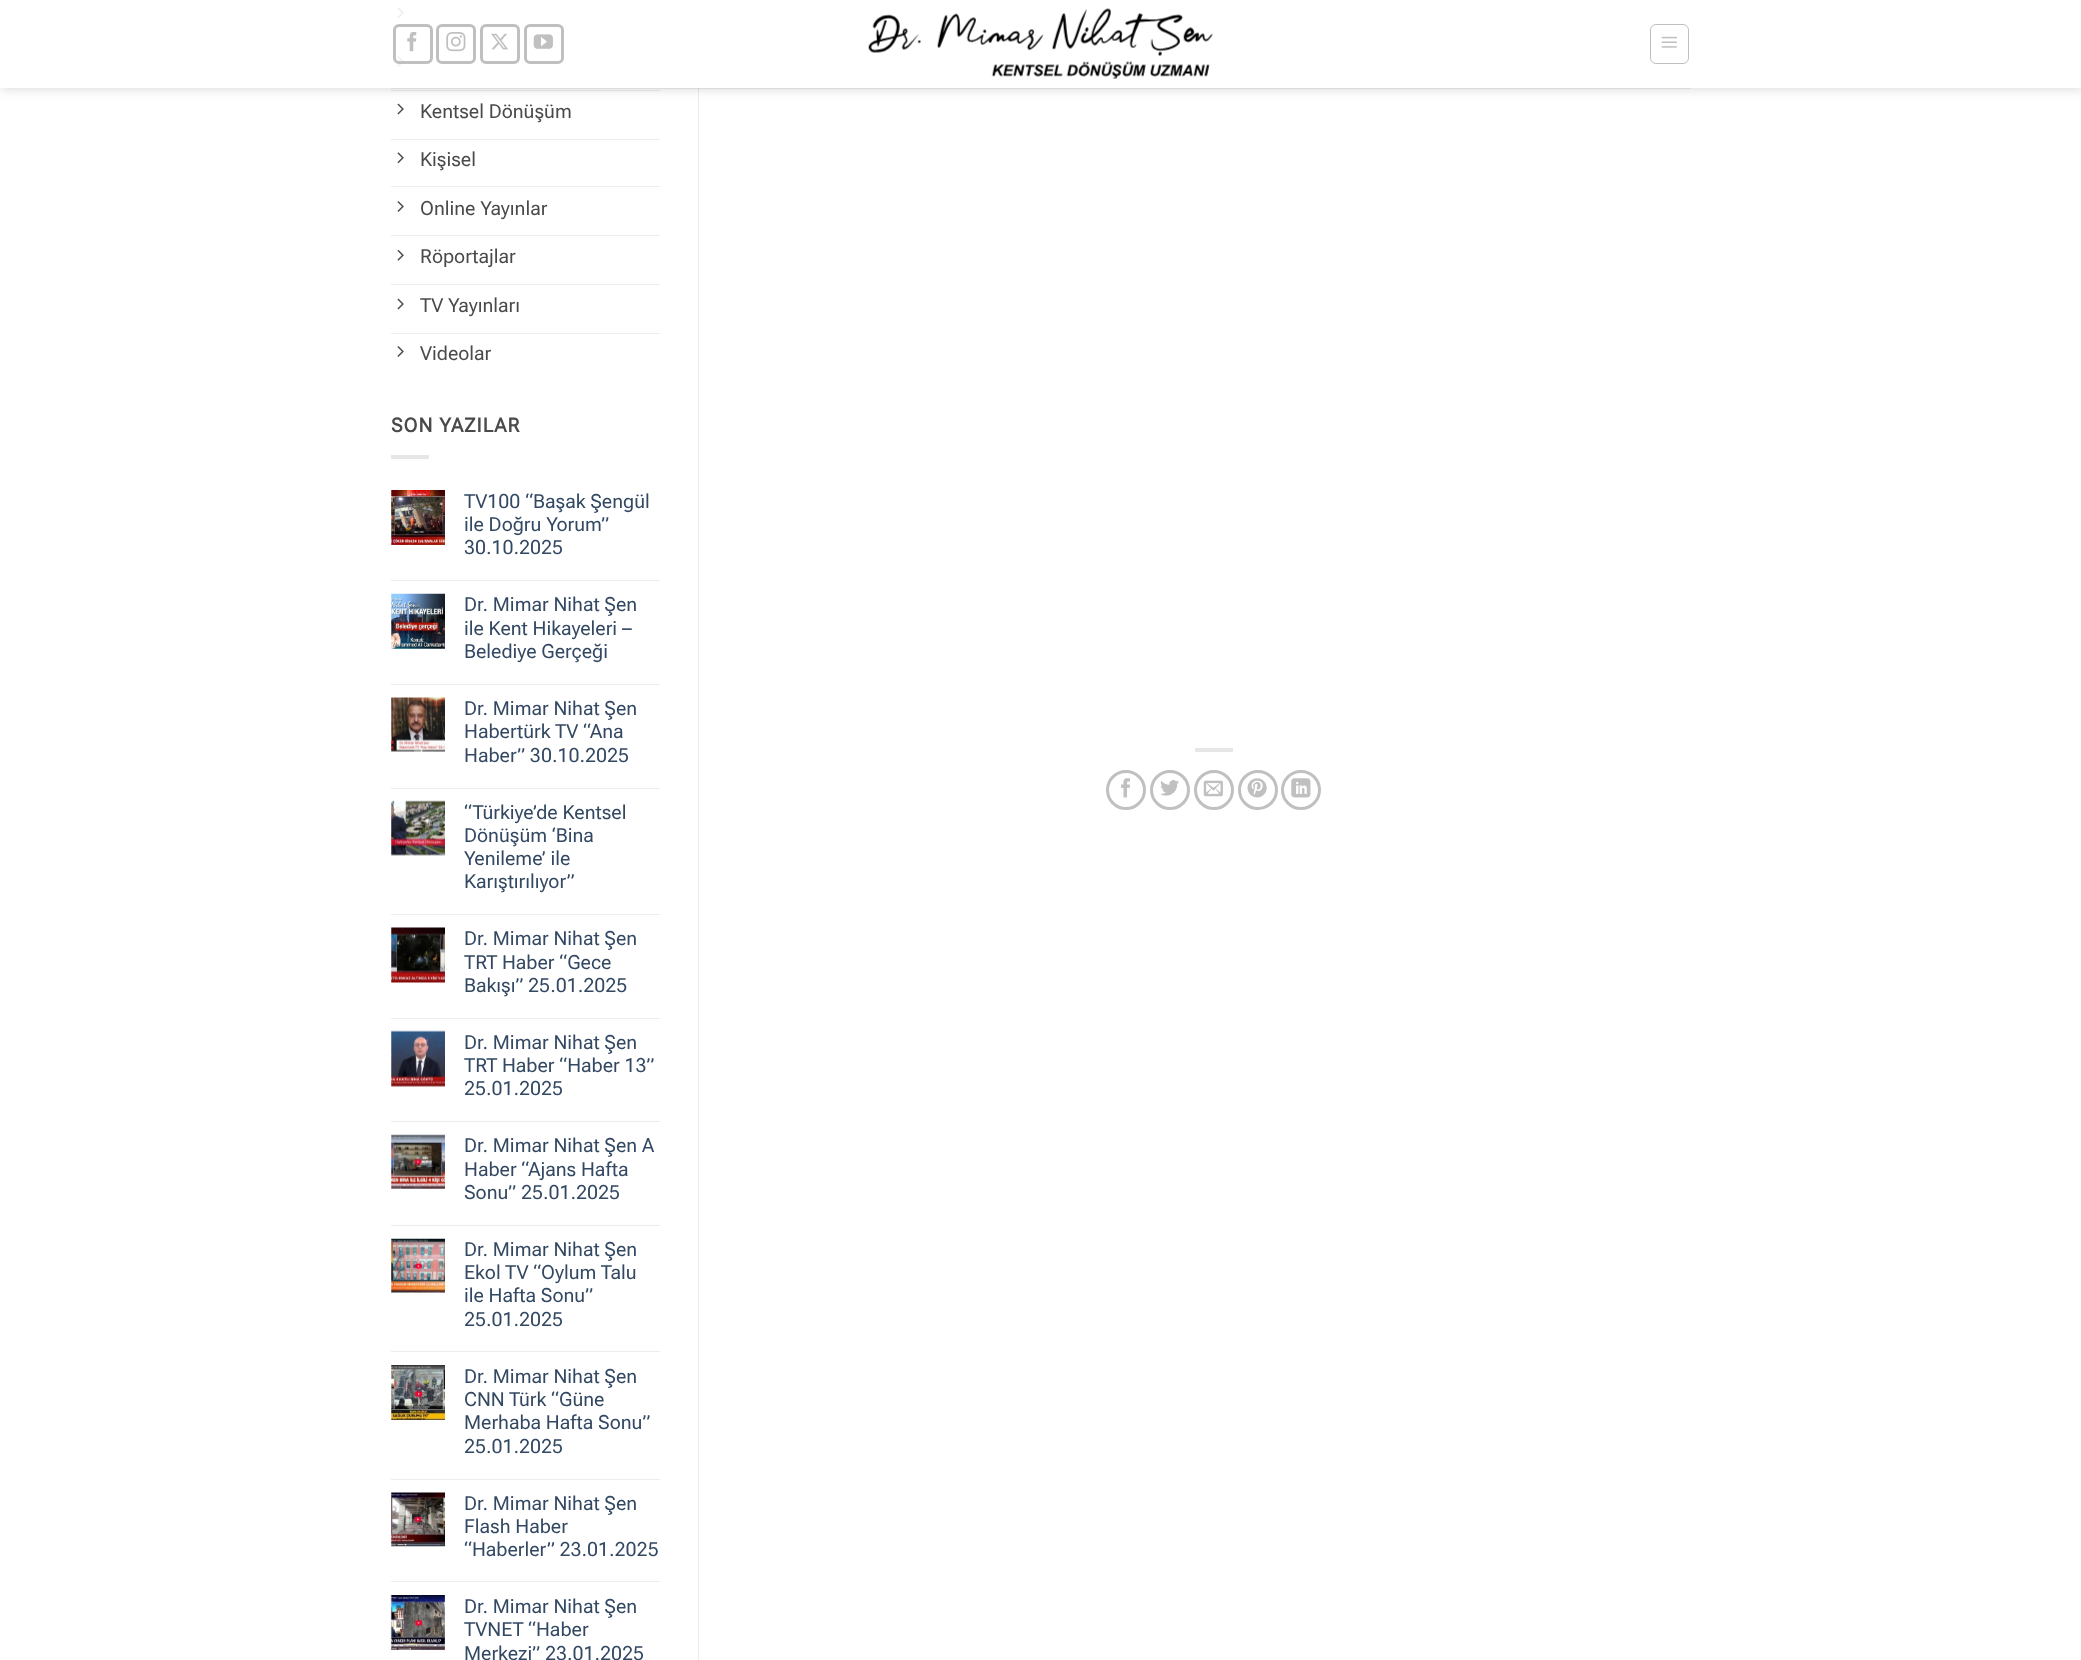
<svg xmlns="http://www.w3.org/2000/svg" width="2081" height="1660" viewBox="0 0 2081 1660">
  <defs>
    <clipPath id="clip1"><path d="M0 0H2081V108H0ZM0 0H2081V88H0Z" clip-rule="evenodd"/></clipPath>
    <filter id="blur1" x="-50%" y="-200%" width="200%" height="500%"><feGaussianBlur stdDeviation="6"/></filter>
  </defs>
  <rect width="100%" height="100%" fill="#ffffff"/>
  <rect x="391" y="41" width="269" height="1" fill="#ececec"/>
  <image x="397" y="7" width="7" height="12" href="img7.png"/>
  <rect x="391" y="90" width="269" height="1" fill="#ececec"/>
  <image x="397" y="56" width="7" height="11" href="img8.png"/>
  <image x="397" y="103" width="7" height="12" href="img9.png"/>
  <rect x="698" y="0" width="1" height="1660" fill="#ececec"/>
  <g clip-path="url(#clip1)">
    <rect x="1" y="1" width="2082" height="88" fill="#000000" fill-opacity="0.15" filter="url(#blur1)"/>
  </g>
  <rect x="0" y="0" width="2081" height="88" fill="#ffffff" fill-opacity="0.9"/>
  <rect x="394.5" y="25.5" width="37" height="37" rx="4.5" fill="none" stroke="#c0c0c0" stroke-width="3"/>
  <image x="407" y="32" width="10" height="20" href="img1.png"/>
  <rect x="437.5" y="25.5" width="37" height="37" rx="4.5" fill="none" stroke="#c0c0c0" stroke-width="3"/>
  <image x="446" y="32" width="20" height="20" href="img2.png"/>
  <rect x="481.5" y="25.5" width="37" height="37" rx="4.5" fill="none" stroke="#c0c0c0" stroke-width="3"/>
  <image x="491" y="33" width="17" height="17" href="img3.png"/>
  <rect x="525.5" y="25.5" width="37" height="37" rx="4.5" fill="none" stroke="#c0c0c0" stroke-width="3"/>
  <image x="533" y="34" width="20" height="15" href="img4.png"/>
  <image x="868" y="8" width="345" height="71" href="img5.png"/>
  <rect x="1650.5" y="24.5" width="38" height="39" rx="5.5" fill="none" stroke="#c0c0c0"/>
  <image x="1661" y="36" width="16" height="12" href="img6.png"/>
  <rect x="391" y="88" width="1300" height="1" fill="#4a4a4a" fill-opacity="0.1"/>
  <rect x="391" y="139" width="269" height="1" fill="#ececec"/>
  <text x="420" y="118" font-family="Roboto Flex" font-size="19.5" fill="#4a4a4a">Kentsel Dönüşüm</text>
  <rect x="391" y="186" width="269" height="1" fill="#ececec"/>
  <image x="397" y="152" width="7" height="12" href="img7.png"/>
  <text x="420" y="166" font-family="Roboto Flex" font-size="19.5" fill="#4a4a4a">Kişisel</text>
  <rect x="391" y="235" width="269" height="1" fill="#ececec"/>
  <image x="397" y="201" width="7" height="11" href="img8.png"/>
  <text x="420" y="215" font-family="Roboto Flex" font-size="19.5" fill="#4a4a4a">Online Yayınlar</text>
  <rect x="391" y="284" width="269" height="1" fill="#ececec"/>
  <image x="397" y="249" width="7" height="12" href="img10.png"/>
  <text x="420" y="263" font-family="Roboto Flex" font-size="19.5" fill="#4a4a4a">Röportajlar</text>
  <rect x="391" y="333" width="269" height="1" fill="#ececec"/>
  <image x="397" y="298" width="7" height="12" href="img9.png"/>
  <text x="420" y="312" font-family="Roboto Flex" font-size="19.5" fill="#4a4a4a">TV Yayınları</text>
  <image x="397" y="346" width="7" height="11" href="img8.png"/>
  <text x="420" y="360" font-family="Roboto Flex" font-size="19.5" fill="#4a4a4a">Videolar</text>
  <text x="391" y="432" font-family="Roboto Flex" font-size="19.5" font-weight="bold" letter-spacing="1" fill="#4a4a4a">SON YAZILAR</text>
  <rect x="391" y="455" width="38" height="4" fill="#e6e6e6"/>
  <image x="391" y="490" width="54" height="55" href="img11.png"/>
  <text x="464" y="508" font-family="Roboto Flex" font-size="19.5" fill="#334862">TV100 “Başak Şengül</text>
  <text x="464" y="531" font-family="Roboto Flex" font-size="19.5" fill="#334862">ile Doğru Yorum”</text>
  <text x="464" y="554" font-family="Roboto Flex" font-size="19.5" fill="#334862">30.10.2025</text>
  <rect x="391" y="580" width="269" height="1" fill="#ececec"/>
  <image x="391" y="593" width="54" height="56" href="img12.png"/>
  <text x="464" y="611" font-family="Roboto Flex" font-size="19.5" fill="#334862">Dr. Mimar Nihat Şen</text>
  <text x="464" y="635" font-family="Roboto Flex" font-size="19.5" fill="#334862">ile Kent Hikayeleri –</text>
  <text x="464" y="658" font-family="Roboto Flex" font-size="19.5" fill="#334862">Belediye Gerçeği</text>
  <rect x="391" y="684" width="269" height="1" fill="#ececec"/>
  <image x="391" y="697" width="54" height="55" href="img13.png"/>
  <text x="464" y="715" font-family="Roboto Flex" font-size="19.5" fill="#334862">Dr. Mimar Nihat Şen</text>
  <text x="464" y="738" font-family="Roboto Flex" font-size="19.5" fill="#334862">Habertürk TV “Ana</text>
  <text x="464" y="762" font-family="Roboto Flex" font-size="19.5" fill="#334862">Haber” 30.10.2025</text>
  <rect x="391" y="788" width="269" height="1" fill="#ececec"/>
  <image x="391" y="800" width="54" height="56" href="img14.png"/>
  <text x="464" y="819" font-family="Roboto Flex" font-size="19.5" fill="#334862">“Türkiye’de Kentsel</text>
  <text x="464" y="842" font-family="Roboto Flex" font-size="19.5" fill="#334862">Dönüşüm ‘Bina</text>
  <text x="464" y="865" font-family="Roboto Flex" font-size="19.5" fill="#334862">Yenileme’ ile</text>
  <text x="464" y="888" font-family="Roboto Flex" font-size="19.5" fill="#334862">Karıştırılıyor”</text>
  <rect x="391" y="914" width="269" height="1" fill="#ececec"/>
  <image x="391" y="927" width="54" height="56" href="img15.png"/>
  <text x="464" y="945" font-family="Roboto Flex" font-size="19.5" fill="#334862">Dr. Mimar Nihat Şen</text>
  <text x="464" y="969" font-family="Roboto Flex" font-size="19.5" fill="#334862">TRT Haber “Gece</text>
  <text x="464" y="992" font-family="Roboto Flex" font-size="19.5" fill="#334862">Bakışı” 25.01.2025</text>
  <rect x="391" y="1018" width="269" height="1" fill="#ececec"/>
  <image x="391" y="1030" width="54" height="57" href="img16.png"/>
  <text x="464" y="1049" font-family="Roboto Flex" font-size="19.5" fill="#334862">Dr. Mimar Nihat Şen</text>
  <text x="464" y="1072" font-family="Roboto Flex" font-size="19.5" fill="#334862">TRT Haber “Haber 13”</text>
  <text x="464" y="1095" font-family="Roboto Flex" font-size="19.5" fill="#334862">25.01.2025</text>
  <rect x="391" y="1121" width="269" height="1" fill="#ececec"/>
  <image x="391" y="1134" width="54" height="55" href="img17.png"/>
  <text x="464" y="1152" font-family="Roboto Flex" font-size="19.5" fill="#334862">Dr. Mimar Nihat Şen A</text>
  <text x="464" y="1176" font-family="Roboto Flex" font-size="19.5" fill="#334862">Haber “Ajans Hafta</text>
  <text x="464" y="1199" font-family="Roboto Flex" font-size="19.5" fill="#334862">Sonu” 25.01.2025</text>
  <rect x="391" y="1225" width="269" height="1" fill="#ececec"/>
  <image x="391" y="1238" width="54" height="55" href="img18.png"/>
  <text x="464" y="1256" font-family="Roboto Flex" font-size="19.5" fill="#334862">Dr. Mimar Nihat Şen</text>
  <text x="464" y="1279" font-family="Roboto Flex" font-size="19.5" fill="#334862">Ekol TV “Oylum Talu</text>
  <text x="464" y="1302" font-family="Roboto Flex" font-size="19.5" fill="#334862">ile Hafta Sonu”</text>
  <text x="464" y="1326" font-family="Roboto Flex" font-size="19.5" fill="#334862">25.01.2025</text>
  <rect x="391" y="1351" width="269" height="1" fill="#ececec"/>
  <image x="391" y="1365" width="54" height="55" href="img19.png"/>
  <text x="464" y="1383" font-family="Roboto Flex" font-size="19.5" fill="#334862">Dr. Mimar Nihat Şen</text>
  <text x="464" y="1406" font-family="Roboto Flex" font-size="19.5" fill="#334862">CNN Türk “Güne</text>
  <text x="464" y="1429" font-family="Roboto Flex" font-size="19.5" fill="#334862">Merhaba Hafta Sonu”</text>
  <text x="464" y="1453" font-family="Roboto Flex" font-size="19.5" fill="#334862">25.01.2025</text>
  <rect x="391" y="1479" width="269" height="1" fill="#ececec"/>
  <image x="391" y="1492" width="54" height="55" href="img20.png"/>
  <text x="464" y="1510" font-family="Roboto Flex" font-size="19.5" fill="#334862">Dr. Mimar Nihat Şen</text>
  <text x="464" y="1533" font-family="Roboto Flex" font-size="19.5" fill="#334862">Flash Haber</text>
  <text x="464" y="1556" font-family="Roboto Flex" font-size="19.5" fill="#334862">“Haberler” 23.01.2025</text>
  <rect x="391" y="1581" width="269" height="1" fill="#ececec"/>
  <image x="390" y="1595" width="55" height="55" href="img21.png"/>
  <text x="464" y="1613" font-family="Roboto Flex" font-size="19.5" fill="#334862">Dr. Mimar Nihat Şen</text>
  <text x="464" y="1636" font-family="Roboto Flex" font-size="19.5" fill="#334862">TVNET “Haber</text>
  <text x="464" y="1660" font-family="Roboto Flex" font-size="19.5" fill="#334862">Merkezi” 23.01.2025</text>
  <rect x="1195" y="748" width="38" height="4" fill="#e6e6e6"/>
  <circle cx="1126" cy="790" r="18.5" fill="none" stroke="#c0c0c0" stroke-width="3"/>
  <image x="1121" y="778" width="9" height="20" href="img22.png"/>
  <circle cx="1170" cy="790" r="18.5" fill="none" stroke="#c0c0c0" stroke-width="3"/>
  <image x="1160" y="780" width="19" height="16" href="img23.png"/>
  <circle cx="1214" cy="790" r="18.5" fill="none" stroke="#c0c0c0" stroke-width="3"/>
  <image x="1203" y="780" width="20" height="17" href="img24.png"/>
  <circle cx="1258" cy="790" r="18.5" fill="none" stroke="#c0c0c0" stroke-width="3"/>
  <image x="1247" y="778" width="20" height="20" href="img25.png"/>
  <circle cx="1301" cy="790" r="18.5" fill="none" stroke="#c0c0c0" stroke-width="3"/>
  <image x="1291" y="778" width="20" height="20" href="img26.png"/>
</svg>
